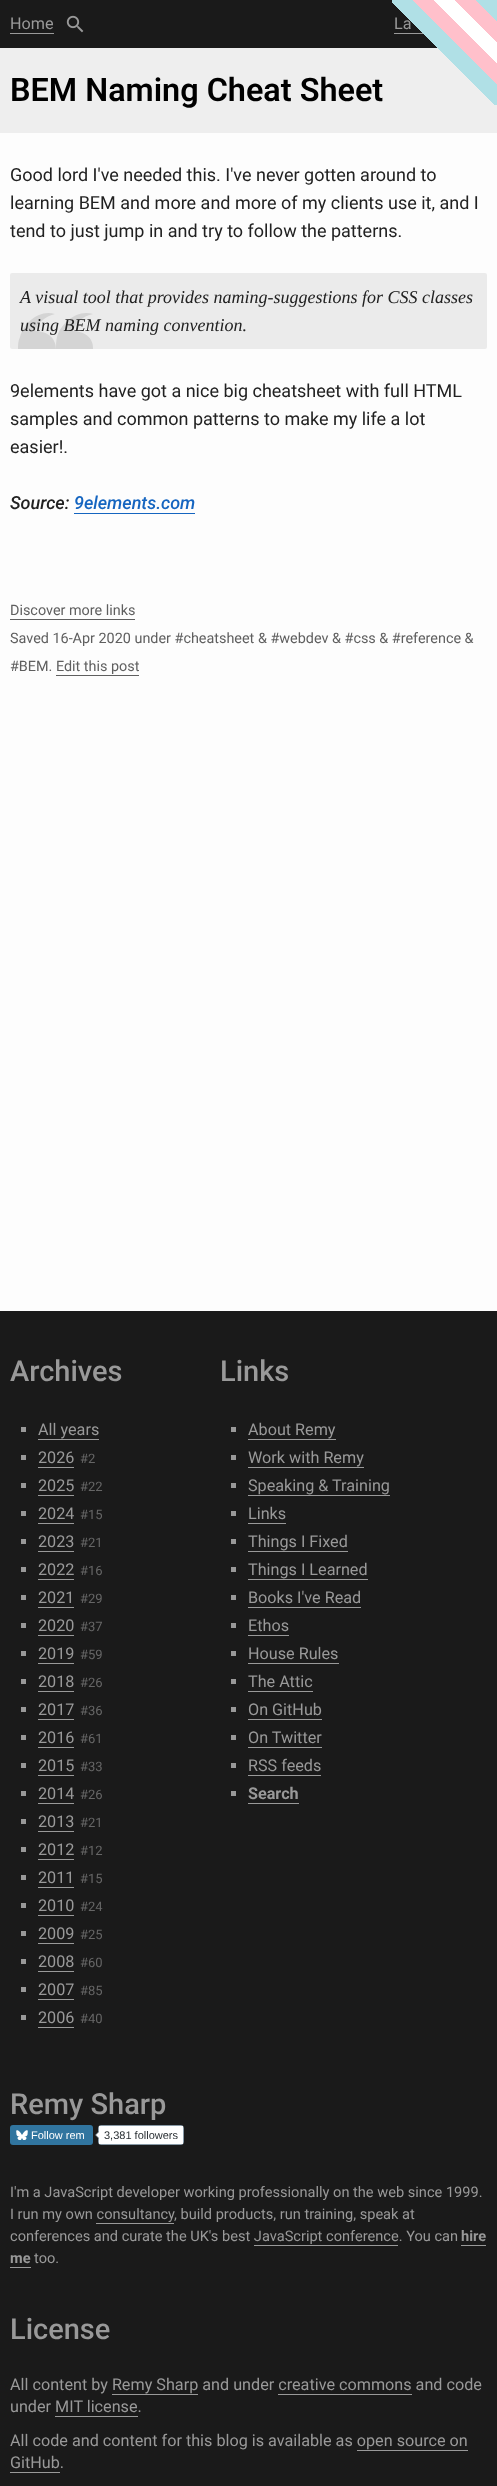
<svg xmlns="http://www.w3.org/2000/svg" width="497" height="2486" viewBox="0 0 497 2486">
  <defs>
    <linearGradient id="g1" gradientUnits="userSpaceOnUse" x1="497" y1="0" x2="392" y2="105"><stop offset="0.1" stop-color="#b0e0e6"/><stop offset="0.1" stop-color="#ffc0cb"/><stop offset="0.2" stop-color="#ffc0cb"/><stop offset="0.2" stop-color="#ffffff"/><stop offset="0.3" stop-color="#ffffff"/><stop offset="0.3" stop-color="#ffc0cb"/><stop offset="0.4" stop-color="#ffc0cb"/><stop offset="0.4" stop-color="#b0e0e6"/><stop offset="0.51" stop-color="#b0e0e6"/><stop offset="0.51" stop-color="#b0e0e6" stop-opacity="0"/></linearGradient>
  </defs>
  <rect width="100%" height="100%" fill="#fdfdfd"/>
  <rect x="0" y="0" width="437" height="48" fill="#1a1a1a"/>
  <text x="394" y="29" font-family="Roboto" font-size="16.2" fill="#999999">La</text>
  <rect x="394" y="33" width="29" height="1" fill="#999999"/>
  <rect x="0" y="48" width="497" height="85" fill="#eeeeee"/>
  <rect x="392" y="0" width="105" height="105" fill="url(#g1)"/>
  <text x="10" y="29" font-family="Roboto" font-size="16.2" fill="#999999">Home</text>
  <rect x="10" y="33" width="44" height="1" fill="#999999"/>
  <image x="66" y="15" width="18" height="18" href="img1.png"/>
  <text x="10" y="101" font-family="Roboto" font-size="32.4" font-weight="600" fill="#000000">BEM Naming Cheat Sheet</text>
  <text x="10" y="181" font-family="Roboto" font-size="18" fill="#212121">Good lord I've needed this. I've never gotten around to</text>
  <text x="10" y="209" font-family="Roboto" font-size="18" fill="#212121">learning BEM and more and more of my clients use it, and I</text>
  <text x="10" y="237" font-family="Roboto" font-size="18" fill="#212121">tend to just jump in and try to follow the patterns.</text>
  <rect x="10" y="273" width="477" height="76" rx="2" fill="#ebebeb"/>
  <path d="M93 349H56C56 345 56 341 57 337C61 323 77 309 93 314C83 316 76 322 73 331C83 331 94 337 93 349ZM56 349H18C18 345 18 341 20 337C24 322 40 309 55 314C46 316 38 322 35 331C46 331 56 337 56 349Z" fill="#d4d4d4" fill-rule="evenodd"/>
  <text x="20" y="303" font-family="Liberation Serif" font-size="18" font-style="italic" fill="#212121">A visual tool that provides naming-suggestions for CSS classes</text>
  <text x="20" y="331" font-family="Liberation Serif" font-size="18" font-style="italic" fill="#212121">using BEM naming convention.</text>
  <text x="10" y="397" font-family="Roboto" font-size="18" fill="#212121">9elements have got a nice big cheatsheet with full HTML</text>
  <text x="10" y="425" font-family="Roboto" font-size="18" fill="#212121">samples and common patterns to make my life a lot</text>
  <text x="10" y="453" font-family="Roboto" font-size="18" fill="#212121">easier!.</text>
  <text x="10" y="509" font-family="Roboto" font-size="18" font-weight="500" font-style="italic" fill="#212121">Source:</text>
  <text x="74" y="509" font-family="Roboto" font-size="18" font-weight="500" font-style="italic" fill="#1565c0">9elements.com</text>
  <rect x="74" y="513" width="121" height="1" fill="#1565c0"/>
  <text x="10" y="615" font-family="Roboto" font-size="14.4" fill="#5f5f5f">Discover more links</text>
  <rect x="10" y="619" width="125" height="1" fill="#5f5f5f"/>
  <text x="10" y="643" font-family="Roboto" font-size="14.4" fill="#5f5f5f">Saved 16-Apr 2020 under #cheatsheet &amp; #webdev &amp; #css &amp; #reference &amp;</text>
  <text x="10" y="671" font-family="Roboto" font-size="14.4" fill="#5f5f5f">#BEM. Edit this post</text>
  <rect x="56" y="675" width="83" height="1" fill="#5f5f5f"/>
  <rect x="0" y="1311" width="497" height="1175" fill="#1a1a1a"/>
  <text x="10" y="1381" font-family="Roboto" font-size="29" font-weight="500" fill="#999999">Archives</text>
  <rect x="21" y="1427" width="5" height="5" fill="#999999"/>
  <text x="38" y="1435" font-family="Roboto" font-size="16.2" fill="#999999">All years</text>
  <rect x="38" y="1439" width="61" height="1" fill="#999999"/>
  <rect x="21" y="1455" width="5" height="5" fill="#999999"/>
  <text x="38" y="1463" font-family="Roboto" font-size="16.2" fill="#999999">2026</text>
  <rect x="38" y="1467" width="36" height="1" fill="#999999"/>
  <text x="80" y="1463" font-family="Roboto" font-size="13" fill="#666666">#2</text>
  <rect x="21" y="1483" width="5" height="5" fill="#999999"/>
  <text x="38" y="1491" font-family="Roboto" font-size="16.2" fill="#999999">2025</text>
  <rect x="38" y="1495" width="36" height="1" fill="#999999"/>
  <text x="80" y="1491" font-family="Roboto" font-size="13" fill="#666666">#22</text>
  <rect x="21" y="1511" width="5" height="5" fill="#999999"/>
  <text x="38" y="1519" font-family="Roboto" font-size="16.2" fill="#999999">2024</text>
  <rect x="38" y="1523" width="36" height="1" fill="#999999"/>
  <text x="80" y="1519" font-family="Roboto" font-size="13" fill="#666666">#15</text>
  <rect x="21" y="1539" width="5" height="5" fill="#999999"/>
  <text x="38" y="1547" font-family="Roboto" font-size="16.2" fill="#999999">2023</text>
  <rect x="38" y="1551" width="36" height="1" fill="#999999"/>
  <text x="80" y="1547" font-family="Roboto" font-size="13" fill="#666666">#21</text>
  <rect x="21" y="1567" width="5" height="5" fill="#999999"/>
  <text x="38" y="1575" font-family="Roboto" font-size="16.2" fill="#999999">2022</text>
  <rect x="38" y="1579" width="36" height="1" fill="#999999"/>
  <text x="80" y="1575" font-family="Roboto" font-size="13" fill="#666666">#16</text>
  <rect x="21" y="1595" width="5" height="5" fill="#999999"/>
  <text x="38" y="1603" font-family="Roboto" font-size="16.2" fill="#999999">2021</text>
  <rect x="38" y="1607" width="36" height="1" fill="#999999"/>
  <text x="80" y="1603" font-family="Roboto" font-size="13" fill="#666666">#29</text>
  <rect x="21" y="1623" width="5" height="5" fill="#999999"/>
  <text x="38" y="1631" font-family="Roboto" font-size="16.2" fill="#999999">2020</text>
  <rect x="38" y="1635" width="36" height="1" fill="#999999"/>
  <text x="80" y="1631" font-family="Roboto" font-size="13" fill="#666666">#37</text>
  <rect x="21" y="1651" width="5" height="5" fill="#999999"/>
  <text x="38" y="1659" font-family="Roboto" font-size="16.2" fill="#999999">2019</text>
  <rect x="38" y="1663" width="36" height="1" fill="#999999"/>
  <text x="80" y="1659" font-family="Roboto" font-size="13" fill="#666666">#59</text>
  <rect x="21" y="1679" width="5" height="5" fill="#999999"/>
  <text x="38" y="1687" font-family="Roboto" font-size="16.2" fill="#999999">2018</text>
  <rect x="38" y="1691" width="36" height="1" fill="#999999"/>
  <text x="80" y="1687" font-family="Roboto" font-size="13" fill="#666666">#26</text>
  <rect x="21" y="1707" width="5" height="5" fill="#999999"/>
  <text x="38" y="1715" font-family="Roboto" font-size="16.2" fill="#999999">2017</text>
  <rect x="38" y="1719" width="36" height="1" fill="#999999"/>
  <text x="80" y="1715" font-family="Roboto" font-size="13" fill="#666666">#36</text>
  <rect x="21" y="1735" width="5" height="5" fill="#999999"/>
  <text x="38" y="1743" font-family="Roboto" font-size="16.2" fill="#999999">2016</text>
  <rect x="38" y="1747" width="36" height="1" fill="#999999"/>
  <text x="80" y="1743" font-family="Roboto" font-size="13" fill="#666666">#61</text>
  <rect x="21" y="1763" width="5" height="5" fill="#999999"/>
  <text x="38" y="1771" font-family="Roboto" font-size="16.2" fill="#999999">2015</text>
  <rect x="38" y="1775" width="36" height="1" fill="#999999"/>
  <text x="80" y="1771" font-family="Roboto" font-size="13" fill="#666666">#33</text>
  <rect x="21" y="1791" width="5" height="5" fill="#999999"/>
  <text x="38" y="1799" font-family="Roboto" font-size="16.2" fill="#999999">2014</text>
  <rect x="38" y="1803" width="36" height="1" fill="#999999"/>
  <text x="80" y="1799" font-family="Roboto" font-size="13" fill="#666666">#26</text>
  <rect x="21" y="1819" width="5" height="5" fill="#999999"/>
  <text x="38" y="1827" font-family="Roboto" font-size="16.2" fill="#999999">2013</text>
  <rect x="38" y="1831" width="36" height="1" fill="#999999"/>
  <text x="80" y="1827" font-family="Roboto" font-size="13" fill="#666666">#21</text>
  <rect x="21" y="1847" width="5" height="5" fill="#999999"/>
  <text x="38" y="1855" font-family="Roboto" font-size="16.2" fill="#999999">2012</text>
  <rect x="38" y="1859" width="36" height="1" fill="#999999"/>
  <text x="80" y="1855" font-family="Roboto" font-size="13" fill="#666666">#12</text>
  <rect x="21" y="1875" width="5" height="5" fill="#999999"/>
  <text x="38" y="1883" font-family="Roboto" font-size="16.2" fill="#999999">2011</text>
  <rect x="38" y="1887" width="36" height="1" fill="#999999"/>
  <text x="80" y="1883" font-family="Roboto" font-size="13" fill="#666666">#15</text>
  <rect x="21" y="1903" width="5" height="5" fill="#999999"/>
  <text x="38" y="1911" font-family="Roboto" font-size="16.2" fill="#999999">2010</text>
  <rect x="38" y="1915" width="36" height="1" fill="#999999"/>
  <text x="80" y="1911" font-family="Roboto" font-size="13" fill="#666666">#24</text>
  <rect x="21" y="1931" width="5" height="5" fill="#999999"/>
  <text x="38" y="1939" font-family="Roboto" font-size="16.2" fill="#999999">2009</text>
  <rect x="38" y="1943" width="36" height="1" fill="#999999"/>
  <text x="80" y="1939" font-family="Roboto" font-size="13" fill="#666666">#25</text>
  <rect x="21" y="1959" width="5" height="5" fill="#999999"/>
  <text x="38" y="1967" font-family="Roboto" font-size="16.2" fill="#999999">2008</text>
  <rect x="38" y="1971" width="36" height="1" fill="#999999"/>
  <text x="80" y="1967" font-family="Roboto" font-size="13" fill="#666666">#60</text>
  <rect x="21" y="1987" width="5" height="5" fill="#999999"/>
  <text x="38" y="1995" font-family="Roboto" font-size="16.2" fill="#999999">2007</text>
  <rect x="38" y="1999" width="36" height="1" fill="#999999"/>
  <text x="80" y="1995" font-family="Roboto" font-size="13" fill="#666666">#85</text>
  <rect x="21" y="2015" width="5" height="5" fill="#999999"/>
  <text x="38" y="2023" font-family="Roboto" font-size="16.2" fill="#999999">2006</text>
  <rect x="38" y="2027" width="36" height="1" fill="#999999"/>
  <text x="80" y="2023" font-family="Roboto" font-size="13" fill="#666666">#40</text>
  <text x="220" y="1381" font-family="Roboto" font-size="29" font-weight="500" fill="#999999">Links</text>
  <rect x="231" y="1427" width="5" height="5" fill="#999999"/>
  <text x="248" y="1435" font-family="Roboto" font-size="16.2" fill="#999999">About Remy</text>
  <rect x="248" y="1439" width="88" height="1" fill="#999999"/>
  <rect x="231" y="1455" width="5" height="5" fill="#999999"/>
  <text x="248" y="1463" font-family="Roboto" font-size="16.2" fill="#999999">Work with Remy</text>
  <rect x="248" y="1467" width="116" height="1" fill="#999999"/>
  <rect x="231" y="1483" width="5" height="5" fill="#999999"/>
  <text x="248" y="1491" font-family="Roboto" font-size="16.2" fill="#999999">Speaking &amp; Training</text>
  <rect x="248" y="1495" width="142" height="1" fill="#999999"/>
  <rect x="231" y="1511" width="5" height="5" fill="#999999"/>
  <text x="248" y="1519" font-family="Roboto" font-size="16.2" fill="#999999">Links</text>
  <rect x="248" y="1523" width="38" height="1" fill="#999999"/>
  <rect x="231" y="1539" width="5" height="5" fill="#999999"/>
  <text x="248" y="1547" font-family="Roboto" font-size="16.2" fill="#999999">Things I Fixed</text>
  <rect x="248" y="1551" width="100" height="1" fill="#999999"/>
  <rect x="231" y="1567" width="5" height="5" fill="#999999"/>
  <text x="248" y="1575" font-family="Roboto" font-size="16.2" fill="#999999">Things I Learned</text>
  <rect x="248" y="1579" width="120" height="1" fill="#999999"/>
  <rect x="231" y="1595" width="5" height="5" fill="#999999"/>
  <text x="248" y="1603" font-family="Roboto" font-size="16.2" fill="#999999">Books I've Read</text>
  <rect x="248" y="1607" width="113" height="1" fill="#999999"/>
  <rect x="231" y="1623" width="5" height="5" fill="#999999"/>
  <text x="248" y="1631" font-family="Roboto" font-size="16.2" fill="#999999">Ethos</text>
  <rect x="248" y="1635" width="41" height="1" fill="#999999"/>
  <rect x="231" y="1651" width="5" height="5" fill="#999999"/>
  <text x="248" y="1659" font-family="Roboto" font-size="16.2" fill="#999999">House Rules</text>
  <rect x="248" y="1663" width="91" height="1" fill="#999999"/>
  <rect x="231" y="1679" width="5" height="5" fill="#999999"/>
  <text x="248" y="1687" font-family="Roboto" font-size="16.2" fill="#999999">The Attic</text>
  <rect x="248" y="1691" width="65" height="1" fill="#999999"/>
  <rect x="231" y="1707" width="5" height="5" fill="#999999"/>
  <text x="248" y="1715" font-family="Roboto" font-size="16.2" fill="#999999">On GitHub</text>
  <rect x="248" y="1719" width="74" height="1" fill="#999999"/>
  <rect x="231" y="1735" width="5" height="5" fill="#999999"/>
  <text x="248" y="1743" font-family="Roboto" font-size="16.2" fill="#999999">On Twitter</text>
  <rect x="248" y="1747" width="74" height="1" fill="#999999"/>
  <rect x="231" y="1763" width="5" height="5" fill="#999999"/>
  <text x="248" y="1771" font-family="Roboto" font-size="16.2" fill="#999999">RSS feeds</text>
  <rect x="248" y="1775" width="73" height="1" fill="#999999"/>
  <rect x="231" y="1791" width="5" height="5" fill="#999999"/>
  <text x="248" y="1799" font-family="Roboto" font-size="16.2" font-weight="bold" fill="#999999">Search</text>
  <rect x="248" y="1803" width="51" height="1" fill="#999999"/>
  <text x="10" y="2114" font-family="Roboto" font-size="29" font-weight="500" fill="#999999">Remy Sharp</text>
  <rect x="10" y="2125" width="83" height="20" rx="3" fill="#31759f"/>
  <image x="16" y="2130" width="12" height="10" href="img2.png"/>
  <text x="31" y="2139" font-family="Liberation Sans" font-size="11" fill="#ffffff">Follow rem</text>
  <rect x="98.5" y="2125.5" width="85" height="19" rx="2.5" fill="none" stroke="#8799a6"/>
  <path d="M99 2131V2139L95 2135Z" fill="#66757f"/>
  <rect x="99" y="2126" width="84" height="18" fill="#ffffff"/>
  <path d="M100 2131V2139L96 2135Z" fill="#ffffff"/>
  <text x="104" y="2139" font-family="Liberation Sans" font-size="11" fill="#292f33">3,381 followers</text>
  <text x="10" y="2197" font-family="Roboto" font-size="14.6" fill="#999999">I'm a JavaScript developer working professionally on the web since 1999.</text>
  <text x="10" y="2219" font-family="Roboto" font-size="14.6" fill="#999999">I run my own consultancy</text>
  <text x="174" y="2219" font-family="Roboto" font-size="14.6" fill="#999999">, build products, run training, speak at</text>
  <rect x="96" y="2223" width="78" height="1" fill="#999999"/>
  <text x="10" y="2241" font-family="Roboto" font-size="14.6" fill="#999999">conferences and curate the UK's best JavaScript conference. You can</text>
  <text x="461" y="2241" font-family="Roboto" font-size="14.6" font-weight="bold" fill="#999999">hire</text>
  <rect x="461" y="2245" width="25" height="1" fill="#999999"/>
  <rect x="254" y="2245" width="144" height="1" fill="#999999"/>
  <text x="10" y="2263" font-family="Roboto" font-size="14.6" font-weight="bold" fill="#999999">me</text>
  <rect x="10" y="2267" width="21" height="1" fill="#999999"/>
  <text x="34" y="2263" font-family="Roboto" font-size="14.6" fill="#999999">too.</text>
  <text x="10" y="2339" font-family="Roboto" font-size="29" font-weight="500" fill="#999999">License</text>
  <text x="10" y="2390" font-family="Roboto" font-size="16.2" fill="#999999">All content by Remy Sharp and under creative commons and code</text>
  <rect x="112" y="2394" width="86" height="1" fill="#999999"/>
  <rect x="278" y="2394" width="134" height="1" fill="#999999"/>
  <text x="10" y="2412" font-family="Roboto" font-size="16.2" fill="#999999">under MIT license.</text>
  <rect x="55" y="2416" width="83" height="1" fill="#999999"/>
  <text x="10" y="2446" font-family="Roboto" font-size="16.2" fill="#999999">All code and content for this blog is available as open source on</text>
  <text x="10" y="2468" font-family="Roboto" font-size="16.2" fill="#999999">GitHub.</text>
  <rect x="357" y="2450" width="111" height="1" fill="#999999"/>
  <rect x="10" y="2472" width="50" height="1" fill="#999999"/>
</svg>
